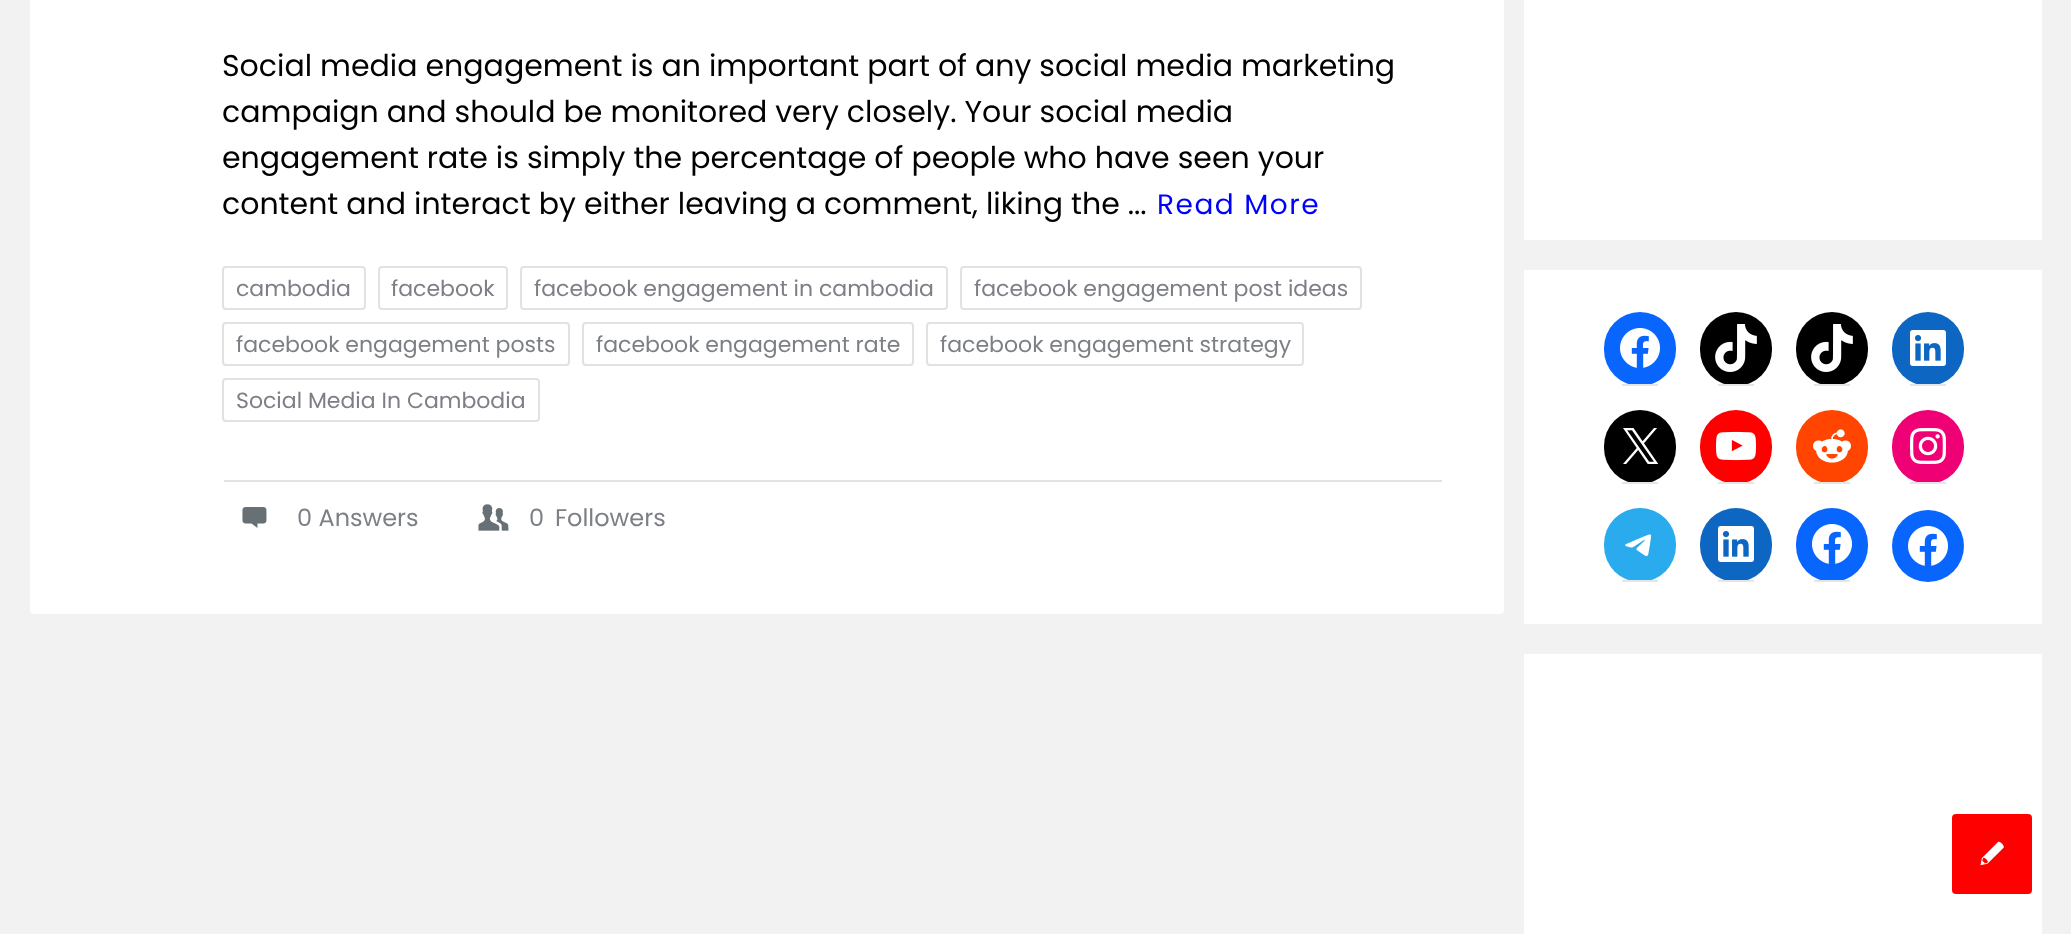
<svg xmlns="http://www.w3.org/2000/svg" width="2071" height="934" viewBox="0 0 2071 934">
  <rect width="100%" height="100%" fill="#f2f2f2"/>
  <rect x="30" y="-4" width="1474" height="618" rx="4" fill="#ffffff"/>
  <text x="222" y="76" font-family="Poppins" font-size="30" fill="#000000">Social media engagement is an important part of any social media marketing</text>
  <text x="222" y="122" font-family="Poppins" font-size="30" fill="#000000">campaign and should be monitored very closely. Your social media</text>
  <text x="222" y="168" font-family="Poppins" font-size="30" fill="#000000">engagement rate is simply the percentage of people who have seen your</text>
  <text x="222" y="214" font-family="Poppins" font-size="30" fill="#000000">content and interact by either leaving a comment, liking the ...</text>
  <text x="1157" y="214" font-family="Poppins" font-size="28" letter-spacing="1.5" fill="#0000ff">Read More</text>
  <rect x="223" y="267" width="142" height="42" rx="3" fill="none" stroke="#e1e3e3" stroke-width="2"/>
  <text x="236" y="296" font-family="Poppins" font-size="22" fill="#7c7f85">cambodia</text>
  <rect x="379" y="267" width="128" height="42" rx="3" fill="none" stroke="#e1e3e3" stroke-width="2"/>
  <text x="391" y="296" font-family="Poppins" font-size="22" fill="#7c7f85">facebook</text>
  <rect x="521" y="267" width="426" height="42" rx="3" fill="none" stroke="#e1e3e3" stroke-width="2"/>
  <text x="534" y="296" font-family="Poppins" font-size="22" fill="#7c7f85">facebook engagement in cambodia</text>
  <rect x="961" y="267" width="400" height="42" rx="3" fill="none" stroke="#e1e3e3" stroke-width="2"/>
  <text x="974" y="296" font-family="Poppins" font-size="22" fill="#7c7f85">facebook engagement post ideas</text>
  <rect x="223" y="323" width="346" height="42" rx="3" fill="none" stroke="#e1e3e3" stroke-width="2"/>
  <text x="236" y="352" font-family="Poppins" font-size="22" fill="#7c7f85">facebook engagement posts</text>
  <rect x="583" y="323" width="330" height="42" rx="3" fill="none" stroke="#e1e3e3" stroke-width="2"/>
  <text x="596" y="352" font-family="Poppins" font-size="22" fill="#7c7f85">facebook engagement rate</text>
  <rect x="927" y="323" width="376" height="42" rx="3" fill="none" stroke="#e1e3e3" stroke-width="2"/>
  <text x="940" y="352" font-family="Poppins" font-size="22" fill="#7c7f85">facebook engagement strategy</text>
  <rect x="223" y="379" width="316" height="42" rx="3" fill="none" stroke="#e1e3e3" stroke-width="2"/>
  <text x="236" y="408" font-family="Poppins" font-size="22" fill="#7c7f85">Social Media In Cambodia</text>
  <rect x="224" y="480" width="1218" height="2" fill="#e1e3e3"/>
  <image x="242" y="507" width="25" height="21" href="img1.png"/>
  <text x="297" y="526" font-family="Poppins" font-size="24" fill="#7c7f85">0 Answers</text>
  <image x="478" y="504" width="31" height="27" href="img2.png"/>
  <text x="529" y="526" font-family="Poppins" font-size="24" fill="#7c7f85">0</text>
  <text x="555" y="526" font-family="Poppins" font-size="24" fill="#7c7f85">Followers</text>
  <rect x="1524" y="0" width="518" height="240" fill="#ffffff"/>
  <rect x="1524" y="270" width="518" height="354" fill="#ffffff"/>
  <rect x="1604" y="312" width="72" height="74" rx="36" fill="#0866ff"/>
  <rect x="1622" y="384" width="36" height="2" fill="#e4e6e6"/>
  <image x="1620" y="328" width="40" height="40" href="img3.png"/>
  <rect x="1700" y="312" width="72" height="74" rx="36" fill="#000000"/>
  <rect x="1718" y="384" width="36" height="2" fill="#e4e6e6"/>
  <image x="1715" y="324" width="42" height="48" href="img4.png"/>
  <rect x="1796" y="312" width="72" height="74" rx="36" fill="#000000"/>
  <rect x="1814" y="384" width="36" height="2" fill="#e4e6e6"/>
  <image x="1811" y="324" width="42" height="48" href="img4.png"/>
  <rect x="1892" y="312" width="72" height="74" rx="36" fill="#0d66c2"/>
  <rect x="1910" y="384" width="36" height="2" fill="#e4e6e6"/>
  <image x="1910" y="330" width="36" height="36" href="img5.png"/>
  <rect x="1604" y="410" width="72" height="74" rx="36" fill="#000000"/>
  <rect x="1622" y="482" width="36" height="2" fill="#e4e6e6"/>
  <image x="1623" y="428" width="36" height="36" href="img6.png"/>
  <rect x="1700" y="410" width="72" height="74" rx="36" fill="#ff0000"/>
  <rect x="1718" y="482" width="36" height="2" fill="#e4e6e6"/>
  <image x="1716" y="431" width="40" height="30" href="img7.png"/>
  <rect x="1796" y="410" width="72" height="74" rx="36" fill="#ff4500"/>
  <rect x="1814" y="482" width="36" height="2" fill="#e4e6e6"/>
  <image x="1813" y="429" width="38" height="34" href="img8.png"/>
  <rect x="1892" y="410" width="72" height="74" rx="36" fill="#f00075"/>
  <rect x="1910" y="482" width="36" height="2" fill="#e4e6e6"/>
  <image x="1910" y="428" width="36" height="36" href="img9.png"/>
  <rect x="1604" y="508" width="72" height="74" rx="36" fill="#2aabee"/>
  <rect x="1622" y="580" width="36" height="2" fill="#e4e6e6"/>
  <image x="1625" y="534" width="27" height="22" href="img10.png"/>
  <rect x="1700" y="508" width="72" height="74" rx="36" fill="#0d66c2"/>
  <rect x="1718" y="580" width="36" height="2" fill="#e4e6e6"/>
  <image x="1718" y="526" width="36" height="36" href="img5.png"/>
  <rect x="1796" y="508" width="72" height="74" rx="36" fill="#0866ff"/>
  <rect x="1814" y="580" width="36" height="2" fill="#e4e6e6"/>
  <image x="1812" y="524" width="40" height="40" href="img3.png"/>
  <circle cx="1928" cy="546" r="36" fill="#0866ff"/>
  <image x="1908" y="526" width="40" height="40" href="img3.png"/>
  <rect x="1524" y="654" width="518" height="280" fill="#ffffff"/>
  <rect x="1952" y="814" width="80" height="80" rx="4" fill="#ff0000"/>
  <image x="1980" y="841" width="24" height="25" href="img11.png"/>
</svg>
